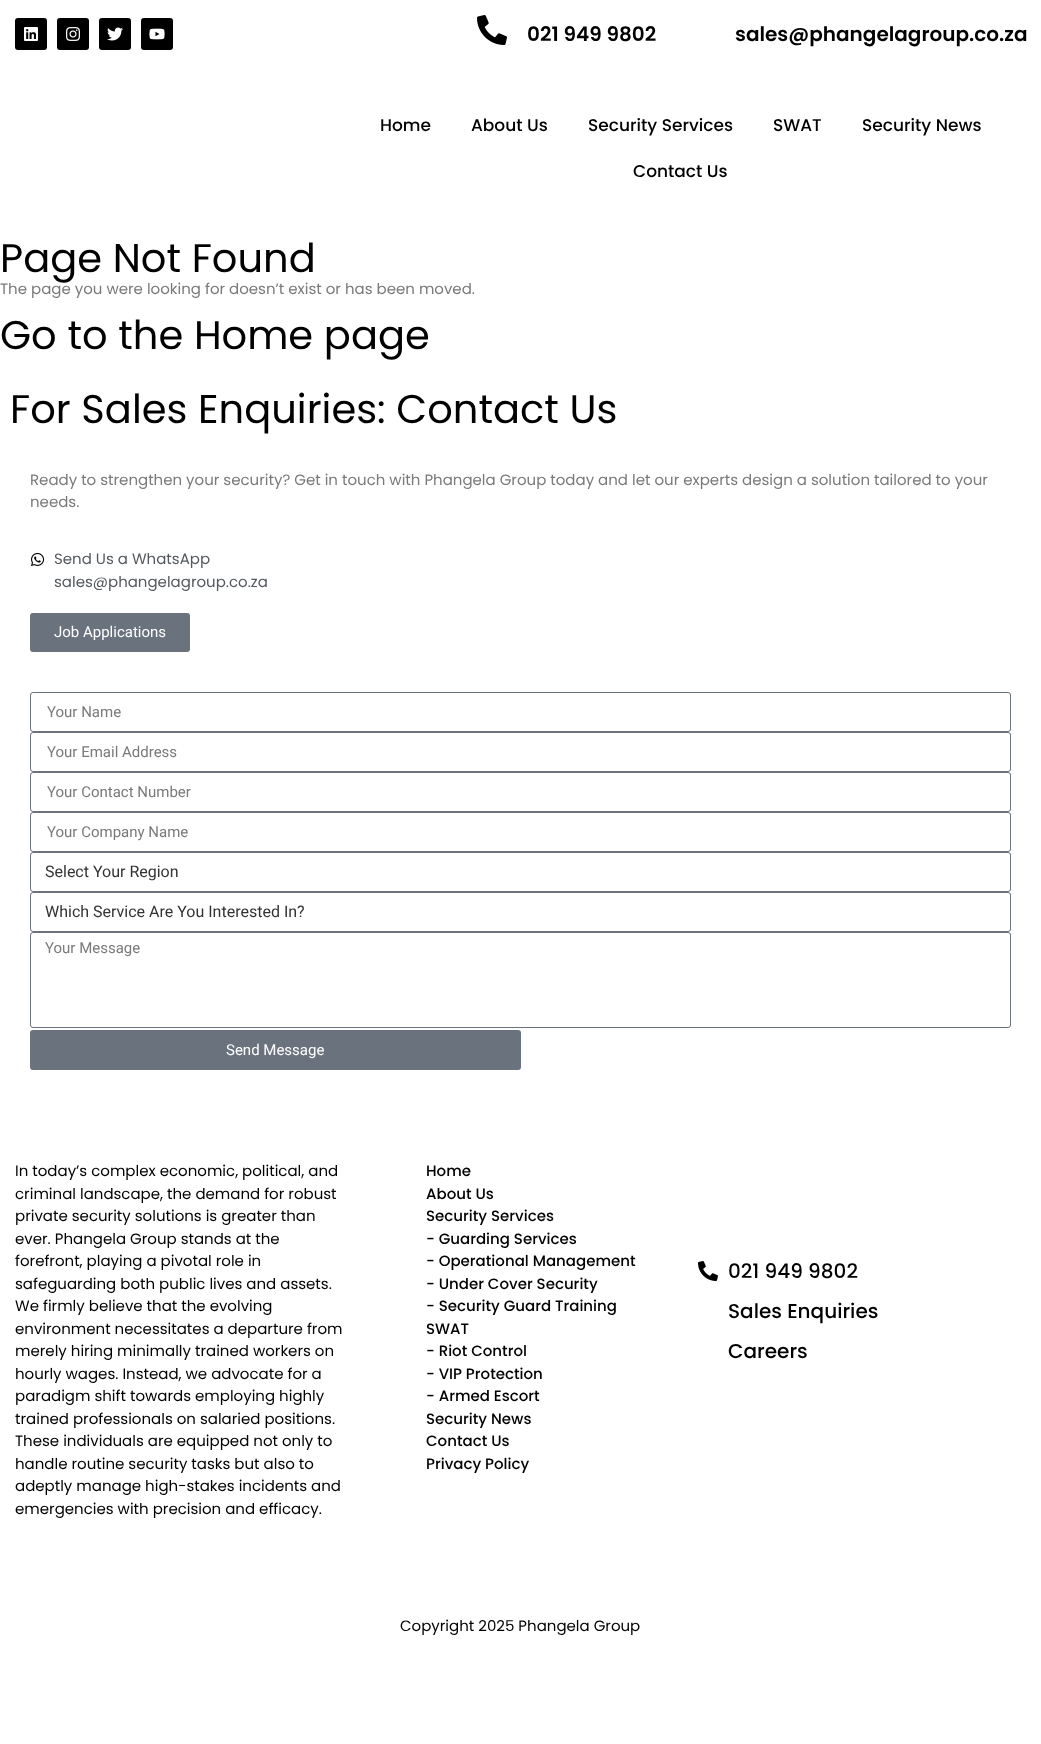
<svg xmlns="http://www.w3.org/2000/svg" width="1041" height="1744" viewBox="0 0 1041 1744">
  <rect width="100%" height="100%" fill="#ffffff"/>
  <rect x="15" y="18" width="32" height="32" rx="3" fill="#000000"/>
  <image x="24" y="27" width="14" height="14" href="img1.png"/>
  <rect x="57" y="18" width="32" height="32" rx="3" fill="#000000"/>
  <image x="66" y="27" width="14" height="14" href="img2.png"/>
  <rect x="99" y="18" width="32" height="32" rx="3" fill="#000000"/>
  <image x="107" y="27" width="16" height="14" href="img3.png"/>
  <rect x="141" y="18" width="32" height="32" rx="3" fill="#000000"/>
  <image x="149" y="28" width="16" height="12" href="img4.png"/>
  <image x="477" y="15" width="30" height="30" href="img5.png"/>
  <text x="527" y="41" font-family="Poppins" font-size="20" font-weight="600" fill="#000000">021 949 9802</text>
  <text x="735" y="41" font-family="Poppins" font-size="20" font-weight="600" fill="#000000">sales@phangelagroup.co.za</text>
  <text x="380" y="131" font-family="Poppins" font-size="17" font-weight="500" fill="#000000">Home</text>
  <text x="471" y="131" font-family="Poppins" font-size="17" font-weight="500" fill="#000000">About Us</text>
  <text x="588" y="131" font-family="Poppins" font-size="17" font-weight="500" fill="#000000">Security Services</text>
  <text x="773" y="131" font-family="Poppins" font-size="17" font-weight="500" fill="#000000">SWAT</text>
  <text x="862" y="131" font-family="Poppins" font-size="17" font-weight="500" fill="#000000">Security News</text>
  <text x="633" y="177" font-family="Poppins" font-size="17" font-weight="500" fill="#000000">Contact Us</text>
  <text x="0" y="272" font-family="Poppins" font-size="40" fill="#000000">Page Not Found</text>
  <text x="0" y="294" font-family="Poppins" font-size="15" fill="#7a7a7a">The page you were looking for doesn’t exist or has been moved.</text>
  <text x="0" y="349" font-family="Poppins" font-size="40" fill="#000000">Go to the Home page</text>
  <text x="10" y="423" font-family="Poppins" font-size="40" fill="#000000">For Sales Enquiries: Contact Us</text>
  <text x="30" y="485" font-family="Poppins" font-size="15" fill="#7a7a7a">Ready to strengthen your security? Get in touch with Phangela Group today and let our experts design a solution tailored to your</text>
  <text x="30" y="507" font-family="Poppins" font-size="15" fill="#7a7a7a">needs.</text>
  <image x="31" y="552" width="14" height="14" href="img6.png"/>
  <text x="54" y="564" font-family="Poppins" font-size="15" fill="#54595f">Send Us a WhatsApp</text>
  <text x="54" y="587" font-family="Poppins" font-size="15" fill="#54595f">sales@phangelagroup.co.za</text>
  <rect x="30" y="613" width="160" height="39" rx="3" fill="#69727d"/>
  <text x="54" y="637" font-family="Roboto" font-size="15" fill="#ffffff">Job Applications</text>
  <rect x="30.5" y="692.5" width="980" height="39" rx="2.5" fill="none" stroke="#69727d"/>
  <text x="47" y="717" font-family="Roboto" font-size="15" fill="#7a7a7a">Your Name</text>
  <rect x="30.5" y="732.5" width="980" height="39" rx="2.5" fill="none" stroke="#69727d"/>
  <text x="47" y="757" font-family="Roboto" font-size="15" fill="#7a7a7a">Your Email Address</text>
  <rect x="30.5" y="772.5" width="980" height="39" rx="2.5" fill="none" stroke="#69727d"/>
  <text x="47" y="797" font-family="Roboto" font-size="15" fill="#7a7a7a">Your Contact Number</text>
  <rect x="30.5" y="812.5" width="980" height="39" rx="2.5" fill="none" stroke="#69727d"/>
  <text x="47" y="837" font-family="Roboto" font-size="15" fill="#7a7a7a">Your Company Name</text>
  <rect x="30.5" y="852.5" width="980" height="39" rx="2.5" fill="none" stroke="#69727d"/>
  <text x="45" y="877" font-family="Roboto" font-size="16" fill="#333333">Select Your Region</text>
  <rect x="30.5" y="892.5" width="980" height="39" rx="2.5" fill="none" stroke="#69727d"/>
  <text x="45" y="917" font-family="Roboto" font-size="16" fill="#333333">Which Service Are You Interested In?</text>
  <rect x="30.5" y="932.5" width="980" height="95" rx="2.5" fill="none" stroke="#69727d"/>
  <text x="45" y="953" font-family="Roboto" font-size="15" fill="#7a7a7a">Your Message</text>
  <rect x="30" y="1030" width="491" height="40" rx="3" fill="#69727d"/>
  <text x="226" y="1055" font-family="Roboto" font-size="15" fill="#ffffff">Send Message</text>
  <text x="15" y="1176" font-family="Poppins" font-size="15" fill="#000000">In today’s complex economic, political, and</text>
  <text x="15" y="1199" font-family="Poppins" font-size="15" fill="#000000">criminal landscape, the demand for robust</text>
  <text x="15" y="1221" font-family="Poppins" font-size="15" fill="#000000">private security solutions is greater than</text>
  <text x="15" y="1244" font-family="Poppins" font-size="15" fill="#000000">ever. Phangela Group stands at the</text>
  <text x="15" y="1266" font-family="Poppins" font-size="15" fill="#000000">forefront, playing a pivotal role in</text>
  <text x="15" y="1289" font-family="Poppins" font-size="15" fill="#000000">safeguarding both public lives and assets.</text>
  <text x="15" y="1311" font-family="Poppins" font-size="15" fill="#000000">We firmly believe that the evolving</text>
  <text x="15" y="1334" font-family="Poppins" font-size="15" fill="#000000">environment necessitates a departure from</text>
  <text x="15" y="1356" font-family="Poppins" font-size="15" fill="#000000">merely hiring minimally trained workers on</text>
  <text x="15" y="1379" font-family="Poppins" font-size="15" fill="#000000">hourly wages. Instead, we advocate for a</text>
  <text x="15" y="1401" font-family="Poppins" font-size="15" fill="#000000">paradigm shift towards employing highly</text>
  <text x="15" y="1424" font-family="Poppins" font-size="15" fill="#000000">trained professionals on salaried positions.</text>
  <text x="15" y="1446" font-family="Poppins" font-size="15" fill="#000000">These individuals are equipped not only to</text>
  <text x="15" y="1469" font-family="Poppins" font-size="15" fill="#000000">handle routine security tasks but also to</text>
  <text x="15" y="1491" font-family="Poppins" font-size="15" fill="#000000">adeptly manage high-stakes incidents and</text>
  <text x="15" y="1514" font-family="Poppins" font-size="15" fill="#000000">emergencies with precision and efficacy.</text>
  <text x="426" y="1176" font-family="Poppins" font-size="15" font-weight="500" fill="#000000">Home</text>
  <text x="426" y="1199" font-family="Poppins" font-size="15" font-weight="500" fill="#000000">About Us</text>
  <text x="426" y="1221" font-family="Poppins" font-size="15" font-weight="500" fill="#000000">Security Services</text>
  <text x="426" y="1244" font-family="Poppins" font-size="15" font-weight="500" fill="#000000">- Guarding Services</text>
  <text x="426" y="1266" font-family="Poppins" font-size="15" font-weight="500" fill="#000000">- Operational Management</text>
  <text x="426" y="1289" font-family="Poppins" font-size="15" font-weight="500" fill="#000000">- Under Cover Security</text>
  <text x="426" y="1311" font-family="Poppins" font-size="15" font-weight="500" fill="#000000">- Security Guard Training</text>
  <text x="426" y="1334" font-family="Poppins" font-size="15" font-weight="500" fill="#000000">SWAT</text>
  <text x="426" y="1356" font-family="Poppins" font-size="15" font-weight="500" fill="#000000">- Riot Control</text>
  <text x="426" y="1379" font-family="Poppins" font-size="15" font-weight="500" fill="#000000">- VIP Protection</text>
  <text x="426" y="1401" font-family="Poppins" font-size="15" font-weight="500" fill="#000000">- Armed Escort</text>
  <text x="426" y="1424" font-family="Poppins" font-size="15" font-weight="500" fill="#000000">Security News</text>
  <text x="426" y="1446" font-family="Poppins" font-size="15" font-weight="500" fill="#000000">Contact Us</text>
  <text x="426" y="1469" font-family="Poppins" font-size="15" font-weight="500" fill="#000000">Privacy Policy</text>
  <image x="698" y="1261" width="20" height="20" href="img7.png"/>
  <text x="728" y="1278" font-family="Poppins" font-size="20" font-weight="500" fill="#000000">021 949 9802</text>
  <text x="728" y="1318" font-family="Poppins" font-size="20" font-weight="500" fill="#000000">Sales Enquiries</text>
  <text x="728" y="1358" font-family="Poppins" font-size="20" font-weight="500" fill="#000000">Careers</text>
  <text x="400" y="1631" font-family="Poppins" font-size="15" fill="#000000">Copyright 2025 Phangela Group</text>
</svg>
